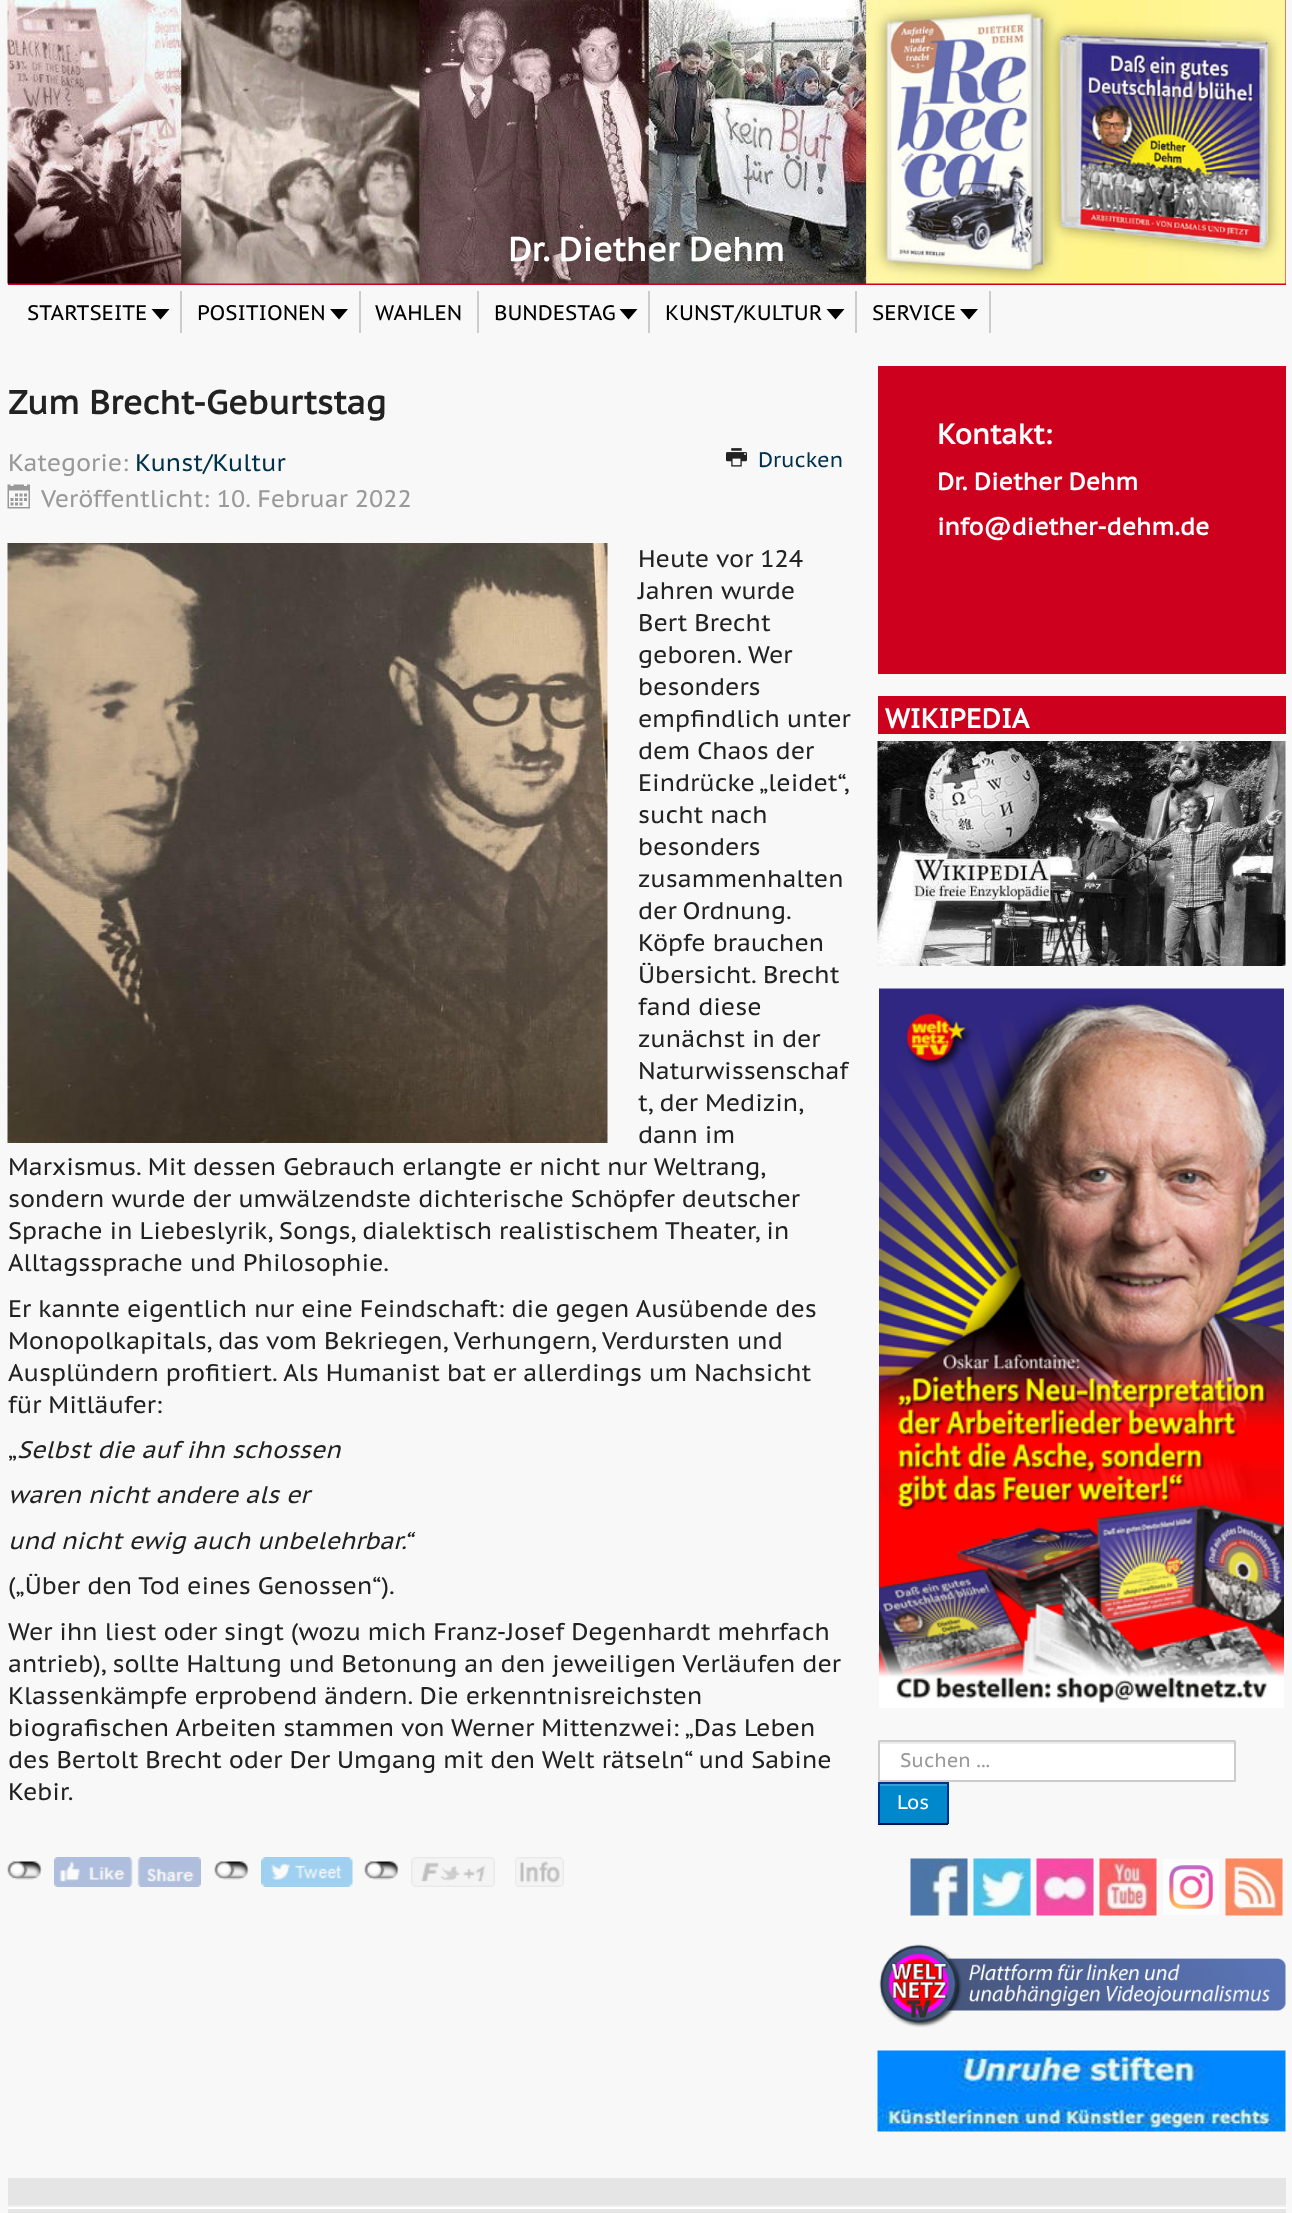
<svg xmlns="http://www.w3.org/2000/svg" width="1292" height="2213" viewBox="0 0 1292 2213">
  <defs>
    <filter id="blur1" x="-50%" y="-200%" width="200%" height="500%"><feGaussianBlur stdDeviation="1.5"/></filter>
  </defs>
  <rect width="100%" height="100%" fill="#f8f8f8"/>
  <rect x="8" y="0" width="1278" height="285" fill="#cd001d"/>
  <image x="7" y="0" width="1279" height="284" href="img1.png"/>
  <text x="508" y="261" font-family="PT Sans Caption" font-size="33" font-weight="bold" fill="#ffffff">Dr. Diether Dehm</text>
  <rect x="180" y="291" width="2" height="42" fill="#cccccc"/>
  <text x="27" y="320" font-family="PT Sans Caption" font-size="21" fill="#000000">STARTSEITE</text>
  <path d="M151.5 309H169.5L160.5 319.5Z" fill="#000000"/>
  <rect x="359" y="291" width="2" height="42" fill="#cccccc"/>
  <text x="197" y="320" font-family="PT Sans Caption" font-size="21" fill="#000000">POSITIONEN</text>
  <path d="M330 309H348L339 319.5Z" fill="#000000"/>
  <rect x="477" y="291" width="2" height="42" fill="#cccccc"/>
  <text x="375" y="320" font-family="PT Sans Caption" font-size="21" fill="#000000">WAHLEN</text>
  <rect x="648" y="291" width="2" height="42" fill="#cccccc"/>
  <text x="494" y="320" font-family="PT Sans Caption" font-size="21" fill="#000000">BUNDESTAG</text>
  <path d="M619.5 309H637.5L628.5 319.5Z" fill="#000000"/>
  <rect x="855" y="291" width="2" height="42" fill="#cccccc"/>
  <text x="665" y="320" font-family="PT Sans Caption" font-size="21" fill="#000000">KUNST/KULTUR</text>
  <path d="M826.5 309H844.5L835.5 319.5Z" fill="#000000"/>
  <rect x="989" y="291" width="2" height="42" fill="#cccccc"/>
  <text x="872" y="320" font-family="PT Sans Caption" font-size="21" fill="#000000">SERVICE</text>
  <path d="M960 309H978L969 319.5Z" fill="#000000"/>
  <text x="8" y="414" font-family="PT Sans Caption" font-size="33" font-weight="bold" fill="#222222">Zum Brecht-Geburtstag</text>
  <text x="8" y="471" font-family="PT Sans Caption" font-size="24" fill="#999999">Kategorie:</text>
  <text x="135" y="471" font-family="PT Sans Caption" font-size="24" fill="#00314a">Kunst/Kultur</text>
  <image x="7" y="484" width="23" height="25" href="img2.png"/>
  <text x="41" y="507" font-family="PT Sans Caption" font-size="24" fill="#999999">Veröffentlicht: 10. Februar 2022</text>
  <image x="726" y="448" width="21" height="19" href="img3.png"/>
  <text x="758" y="467" font-family="PT Sans Caption" font-size="21" fill="#00314a">Drucken</text>
  <image x="7" y="543" width="601" height="600" href="img4.png"/>
  <text x="638" y="567" font-family="PT Sans Caption" font-size="24" fill="#222222">Heute vor 124</text>
  <text x="638" y="599" font-family="PT Sans Caption" font-size="24" fill="#222222">Jahren wurde</text>
  <text x="638" y="631" font-family="PT Sans Caption" font-size="24" fill="#222222">Bert Brecht</text>
  <text x="638" y="663" font-family="PT Sans Caption" font-size="24" fill="#222222">geboren. Wer</text>
  <text x="638" y="695" font-family="PT Sans Caption" font-size="24" fill="#222222">besonders</text>
  <text x="638" y="727" font-family="PT Sans Caption" font-size="24" fill="#222222">empfindlich unter</text>
  <text x="638" y="759" font-family="PT Sans Caption" font-size="24" fill="#222222">dem Chaos der</text>
  <text x="638" y="791" word-spacing="-1" font-family="PT Sans Caption" font-size="24" fill="#222222">Eindrücke „leidet“,</text>
  <text x="638" y="823" font-family="PT Sans Caption" font-size="24" fill="#222222">sucht nach</text>
  <text x="638" y="855" font-family="PT Sans Caption" font-size="24" fill="#222222">besonders</text>
  <text x="638" y="887" font-family="PT Sans Caption" font-size="24" fill="#222222">zusammenhalten</text>
  <text x="638" y="919" word-spacing="-1" font-family="PT Sans Caption" font-size="24" fill="#222222">der Ordnung.</text>
  <text x="638" y="951" font-family="PT Sans Caption" font-size="24" fill="#222222">Köpfe brauchen</text>
  <text x="638" y="983" font-family="PT Sans Caption" font-size="24" fill="#222222">Übersicht. Brecht</text>
  <text x="638" y="1015" font-family="PT Sans Caption" font-size="24" fill="#222222">fand diese</text>
  <text x="638" y="1047" font-family="PT Sans Caption" font-size="24" fill="#222222">zunächst in der</text>
  <text x="638" y="1079" font-family="PT Sans Caption" font-size="24" fill="#222222">Naturwissenschaf</text>
  <text x="638" y="1111" font-family="PT Sans Caption" font-size="24" fill="#222222">t, der Medizin,</text>
  <text x="638" y="1143" font-family="PT Sans Caption" font-size="24" fill="#222222">dann im</text>
  <text x="8" y="1175" font-family="PT Sans Caption" font-size="24" fill="#222222">Marxismus. Mit dessen Gebrauch erlangte er nicht nur Weltrang,</text>
  <text x="8" y="1207" font-family="PT Sans Caption" font-size="24" fill="#222222">sondern wurde der umwälzendste dichterische Schöpfer deutscher</text>
  <text x="8" y="1239" font-family="PT Sans Caption" font-size="24" fill="#222222">Sprache in Liebeslyrik, Songs, dialektisch realistischem Theater, in</text>
  <text x="8" y="1271" font-family="PT Sans Caption" font-size="24" fill="#222222">Alltagssprache und Philosophie.</text>
  <text x="8" y="1317" font-family="PT Sans Caption" font-size="24" fill="#222222">Er kannte eigentlich nur eine Feindschaft: die gegen Ausübende des</text>
  <text x="8" y="1349" font-family="PT Sans Caption" font-size="24" fill="#222222">Monopolkapitals, das vom Bekriegen, Verhungern, Verdursten und</text>
  <text x="8" y="1381" font-family="PT Sans Caption" font-size="24" fill="#222222">Ausplündern profitiert. Als Humanist bat er allerdings um Nachsicht</text>
  <text x="8" y="1413" font-family="PT Sans Caption" font-size="24" fill="#222222">für Mitläufer:</text>
  <text x="8" y="1458" font-family="PT Sans Caption" font-size="24" fill="#222222">„</text>
  <text x="17" y="1458" font-family="PT Sans Caption" font-size="24" font-style="italic" fill="#222222">Selbst die auf ihn schossen</text>
  <text x="8" y="1503" font-family="PT Sans Caption" font-size="24" font-style="italic" fill="#222222">waren nicht andere als er</text>
  <text x="8" y="1549" font-family="PT Sans Caption" font-size="24" font-style="italic" fill="#222222">und nicht ewig auch unbelehrbar.“</text>
  <text x="8" y="1594" font-family="PT Sans Caption" font-size="24" fill="#222222">(„Über den Tod eines Genossen“).</text>
  <text x="8" y="1640" font-family="PT Sans Caption" font-size="24" fill="#222222">Wer ihn liest oder singt (wozu mich Franz-Josef Degenhardt mehrfach</text>
  <text x="8" y="1672" font-family="PT Sans Caption" font-size="24" fill="#222222">antrieb), sollte Haltung und Betonung an den jeweiligen Verläufen der</text>
  <text x="8" y="1704" font-family="PT Sans Caption" font-size="24" fill="#222222">Klassenkämpfe erprobend ändern. Die erkenntnisreichsten</text>
  <text x="8" y="1736" font-family="PT Sans Caption" font-size="24" fill="#222222">biografischen Arbeiten stammen von Werner Mittenzwei: „Das Leben</text>
  <text x="8" y="1768" font-family="PT Sans Caption" font-size="24" fill="#222222">des Bertolt Brecht oder Der Umgang mit den Welt rätseln“ und Sabine</text>
  <text x="8" y="1800" font-family="PT Sans Caption" font-size="24" fill="#222222">Kebir.</text>
  <image x="7" y="1861" width="35" height="19" href="img5.png"/>
  <image x="54" y="1857" width="147" height="30" href="img6.png"/>
  <image x="214" y="1861" width="35" height="19" href="img5.png"/>
  <image x="261" y="1857" width="92" height="30" href="img7.png"/>
  <image x="364" y="1861" width="35" height="19" href="img8.png"/>
  <image x="411" y="1857" width="84" height="30" href="img9.png"/>
  <image x="515" y="1857" width="49" height="30" href="img10.png"/>
  <rect x="878" y="366" width="408" height="308" fill="#cd001d"/>
  <text x="937" y="444" font-family="PT Sans Caption" font-size="28" font-weight="bold" fill="#ffffff">Kontakt:</text>
  <text x="937" y="490" font-family="PT Sans Caption" font-size="24" font-weight="bold" fill="#ffffff">Dr. Diether Dehm</text>
  <text x="937" y="535" font-family="PT Sans Caption" font-size="24" font-weight="bold" fill="#ffffff">info@diether-dehm.de</text>
  <rect x="878" y="696" width="408" height="38" fill="#cd001d"/>
  <text x="885" y="728" font-family="PT Sans Caption" font-size="27" font-weight="bold" fill="#ffffff">WIKIPEDIA</text>
  <image x="877" y="741" width="409" height="225" href="img11.png"/>
  <image x="879" y="988" width="405" height="720" href="img12.png"/>
  <rect x="878" y="1740" width="358" height="42" rx="1.5" fill="#ffffff"/>
  <rect x="879" y="1742" width="356" height="2" fill="#ececec"/>
  <rect x="879" y="1741" width="356" height="40" rx="0.5" fill="none" stroke="#cccccc" stroke-width="2"/>
  <text x="900" y="1767" font-family="PT Sans Caption" font-size="19.5" fill="#999999">Suchen ...</text>
  <rect x="878" y="1784" width="70" height="42" fill="#000000" fill-opacity="0.05" filter="url(#blur1)"/>
  <rect x="880" y="1786" width="67" height="37" fill="#0088cc"/>
  <rect x="879" y="1784" width="68" height="2" fill="#33a0d6"/>
  <rect x="878" y="1782" width="70" height="2" fill="#002f8d"/>
  <rect x="947" y="1782" width="2" height="42" fill="#002f8d"/>
  <rect x="878" y="1823" width="70" height="2" fill="#001641"/>
  <rect x="878" y="1782" width="2" height="42" fill="#002f8d"/>
  <text x="897" y="1809" font-family="PT Sans Caption" font-size="19.5" fill="#ffffff">Los</text>
  <image x="910" y="1858" width="58" height="58" href="img13.png"/>
  <image x="973" y="1858" width="58" height="58" href="img14.png"/>
  <image x="1036" y="1858" width="58" height="58" href="img15.png"/>
  <image x="1099" y="1858" width="58" height="58" href="img16.png"/>
  <image x="1163" y="1859" width="56" height="56" href="img17.png"/>
  <image x="1225" y="1858" width="58" height="58" href="img18.png"/>
  <image x="879" y="1944" width="407" height="84" href="img19.png"/>
  <image x="877" y="2050" width="409" height="82" href="img20.png"/>
  <rect x="8" y="2178" width="1278" height="35" fill="#e5e5e5"/>
  <rect x="8" y="2205" width="1278" height="2" fill="#eeeeee"/>
  <rect x="8" y="2207" width="1278" height="2" fill="#ffffff"/>
</svg>
